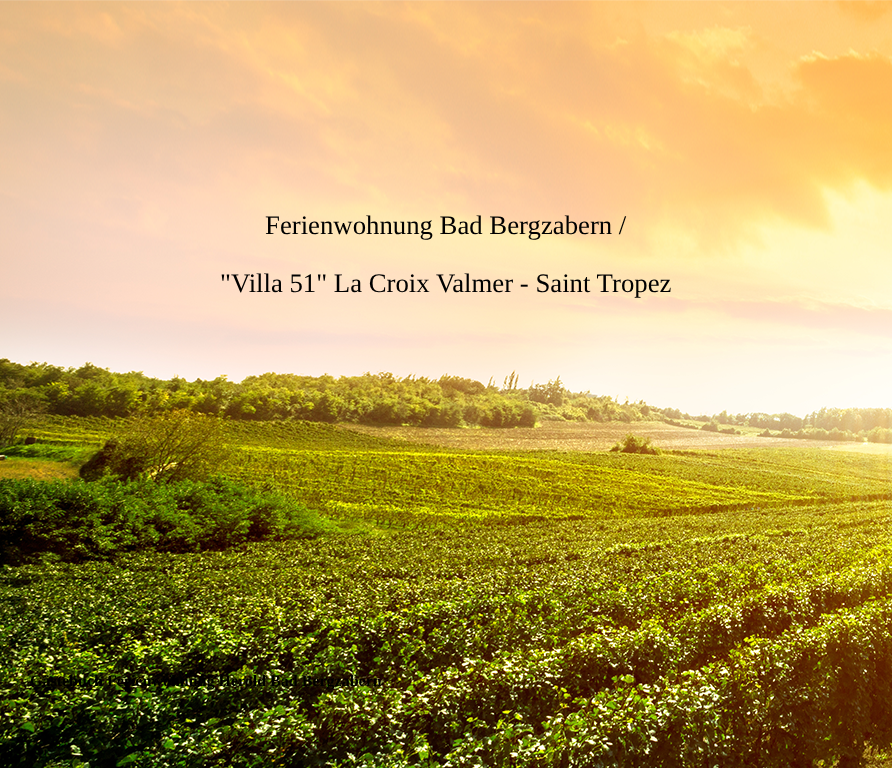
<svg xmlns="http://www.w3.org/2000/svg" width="892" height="768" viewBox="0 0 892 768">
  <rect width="100%" height="100%" fill="#ffffff"/>
  <image x="0" y="0" width="892" height="768" href="img1.png"/>
  <text x="265" y="234" font-family="Liberation Serif" font-size="26.75" fill="#000000">Ferienwohnung Bad Bergzabern /</text>
  <text x="220" y="292" font-family="Liberation Serif" font-size="26.75" fill="#000000">"Villa 51" La Croix Valmer - Saint Tropez</text>
  <text x="30" y="686" font-family="Liberation Serif" font-size="16" font-weight="bold" fill="#000000">Gästebuch Ferienwohnung Herold Bad Bergzabern</text>
</svg>
